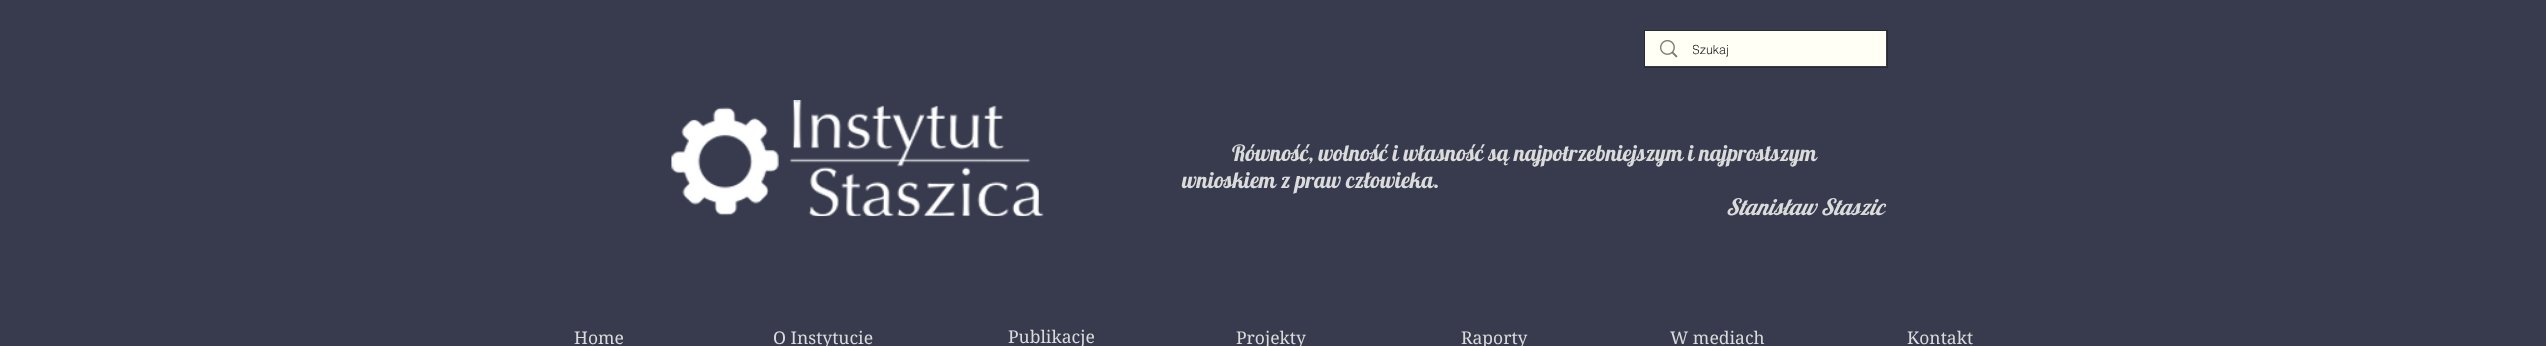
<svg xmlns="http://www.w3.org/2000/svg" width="2546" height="346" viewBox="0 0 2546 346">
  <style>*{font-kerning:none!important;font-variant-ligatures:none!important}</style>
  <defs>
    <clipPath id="clip1"><rect x="1693" y="41" width="141" height="17"/></clipPath>
  </defs>
  <rect width="100%" height="100%" fill="#373b4d"/>
  <rect x="1644.5" y="30.5" width="243" height="37" fill="none" stroke="#292b32"/>
  <rect x="1645" y="31" width="241" height="35" fill="#fffff6"/>
  <image x="1660" y="40" width="18" height="18" href="img1.png"/>
  <g clip-path="url(#clip1)">
    <text x="1692" y="54" font-family="helvetica" font-size="12.5" font-weight="300" fill="#202020">Szukaj</text>
  </g>
  <image x="671" y="100" width="373" height="117" href="img2.png"/>
  <text x="1232" y="161" font-family="Lobster" font-size="22.5" fill="#dbdbdb">Równość, wolność i własność są najpotrzebniejszym</text>
  <text x="1688" y="161" font-family="Lobster" font-size="22.5" fill="#dbdbdb">i najprostszym</text>
  <text x="1182" y="188" font-family="Lobster" font-size="22.5" fill="#dbdbdb">wnioskiem z praw człowieka.</text>
  <text x="1726" y="215" font-family="Lobster" font-size="22.5" font-style="italic" fill="#dbdbdb">Stanisław Staszic</text>
  <text x="1008" y="343" font-family="'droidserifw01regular'" font-size="17.5" fill="#dbdbdb">Publikacje</text>
  <text x="574" y="344" font-family="'droidserifw01regular'" font-size="17.5" fill="#dbdbdb">Home</text>
  <text x="773" y="344" font-family="'droidserifw01regular'" font-size="17.5" fill="#dbdbdb">O Instytucie</text>
  <text x="1236" y="344" font-family="'droidserifw01regular'" font-size="17.5" fill="#dbdbdb">Projekty</text>
  <text x="1461" y="344" font-family="'droidserifw01regular'" font-size="17.5" fill="#dbdbdb">Raporty</text>
  <text x="1670" y="344" font-family="'droidserifw01regular'" font-size="17.5" fill="#dbdbdb">W mediach</text>
  <text x="1907" y="344" font-family="'droidserifw01regular'" font-size="17.5" fill="#dbdbdb">Kontakt</text>
</svg>
